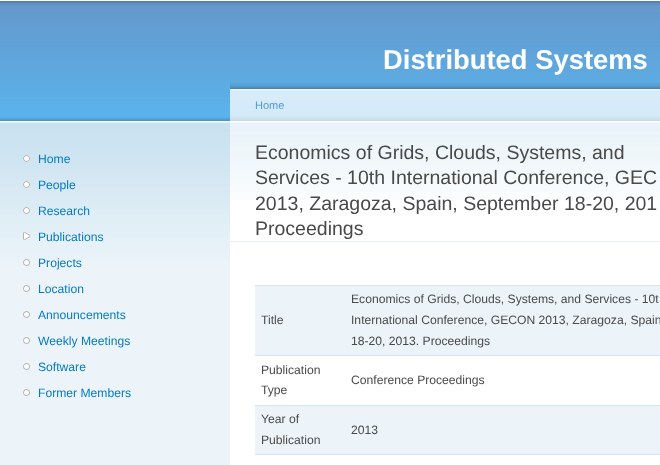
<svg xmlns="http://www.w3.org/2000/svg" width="660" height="465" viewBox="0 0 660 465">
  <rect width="100%" height="100%" fill="#edf4f9"/>
  <image x="0" y="0" width="660" height="260" href="img1.png"/>
  <text x="383" y="69" font-family="Liberation Sans" font-size="27.4" font-weight="bold" fill="#ffffff">Distributed Systems</text>
  <image x="23" y="155" width="7" height="7" href="img2.png"/>
  <text x="38" y="163" font-family="Liberation Sans" font-size="12.15" fill="#027ac6">Home</text>
  <image x="23" y="181" width="7" height="7" href="img3.png"/>
  <text x="38" y="189" font-family="Liberation Sans" font-size="12.15" fill="#027ac6">People</text>
  <image x="23" y="207" width="7" height="7" href="img4.png"/>
  <text x="38" y="215" font-family="Liberation Sans" font-size="12.15" fill="#027ac6">Research</text>
  <image x="23" y="231" width="8" height="10" href="img5.png"/>
  <text x="38" y="241" font-family="Liberation Sans" font-size="12.15" fill="#027ac6">Publications</text>
  <image x="23" y="259" width="7" height="7" href="img6.png"/>
  <text x="38" y="267" font-family="Liberation Sans" font-size="12.15" fill="#027ac6">Projects</text>
  <image x="23" y="285" width="7" height="7" href="img7.png"/>
  <text x="38" y="293" font-family="Liberation Sans" font-size="12.15" fill="#027ac6">Location</text>
  <image x="23" y="311" width="7" height="7" href="img7.png"/>
  <text x="38" y="319" font-family="Liberation Sans" font-size="12.15" fill="#027ac6">Announcements</text>
  <image x="23" y="337" width="7" height="7" href="img7.png"/>
  <text x="38" y="345" font-family="Liberation Sans" font-size="12.15" fill="#027ac6">Weekly Meetings</text>
  <image x="23" y="363" width="7" height="7" href="img7.png"/>
  <text x="38" y="371" font-family="Liberation Sans" font-size="12.15" fill="#027ac6">Software</text>
  <image x="23" y="389" width="7" height="7" href="img7.png"/>
  <text x="38" y="397" font-family="Liberation Sans" font-size="12.15" fill="#027ac6">Former Members</text>
  <rect x="230" y="200" width="430" height="265" fill="#ffffff"/>
  <image x="230" y="80" width="430" height="120" href="img8.png"/>
  <text x="255" y="109" font-family="Liberation Sans" font-size="11" fill="#5299d6">Home</text>
  <rect x="229" y="241" width="431" height="1" fill="#e9eef3"/>
  <text x="255" y="159" font-family="Liberation Sans" font-size="19.5" fill="#494949">Economics of Grids, Clouds, Systems, and</text>
  <text x="255" y="184" font-family="Liberation Sans" font-size="19.5" fill="#494949">Services - 10th International Conference, GEC</text>
  <text x="255" y="210" font-family="Liberation Sans" font-size="19.5" fill="#494949">2013, Zaragoza, Spain, September 18-20, 201</text>
  <text x="255" y="235" font-family="Liberation Sans" font-size="19.5" fill="#494949">Proceedings</text>
  <rect x="255" y="286" width="405" height="69" fill="#edf4f9"/>
  <rect x="255" y="285" width="405" height="1" fill="#d3e6f3"/>
  <text x="261" y="324" font-family="Liberation Sans" font-size="12.15" fill="#494949">Title</text>
  <text x="351" y="303" font-family="Liberation Sans" font-size="12.15" fill="#494949">Economics of Grids, Clouds, Systems, and Services - 10t</text>
  <text x="351" y="324" font-family="Liberation Sans" font-size="12.15" fill="#494949">International Conference, GECON 2013, Zaragoza, Spain</text>
  <text x="351" y="345" font-family="Liberation Sans" font-size="12.15" fill="#494949">18-20, 2013. Proceedings</text>
  <rect x="255" y="355" width="405" height="1" fill="#d3e6f3"/>
  <text x="261" y="374" font-family="Liberation Sans" font-size="12.15" fill="#494949">Publication</text>
  <text x="261" y="394" font-family="Liberation Sans" font-size="12.15" fill="#494949">Type</text>
  <text x="351" y="384" font-family="Liberation Sans" font-size="12.15" fill="#494949">Conference Proceedings</text>
  <rect x="255" y="406" width="405" height="48" fill="#edf4f9"/>
  <rect x="255" y="405" width="405" height="1" fill="#d3e6f3"/>
  <text x="261" y="423" font-family="Liberation Sans" font-size="12.15" fill="#494949">Year of</text>
  <text x="261" y="444" font-family="Liberation Sans" font-size="12.15" fill="#494949">Publication</text>
  <text x="351" y="434" font-family="Liberation Sans" font-size="12.15" fill="#494949">2013</text>
  <rect x="255" y="454" width="405" height="1" fill="#d3e6f3"/>
</svg>
